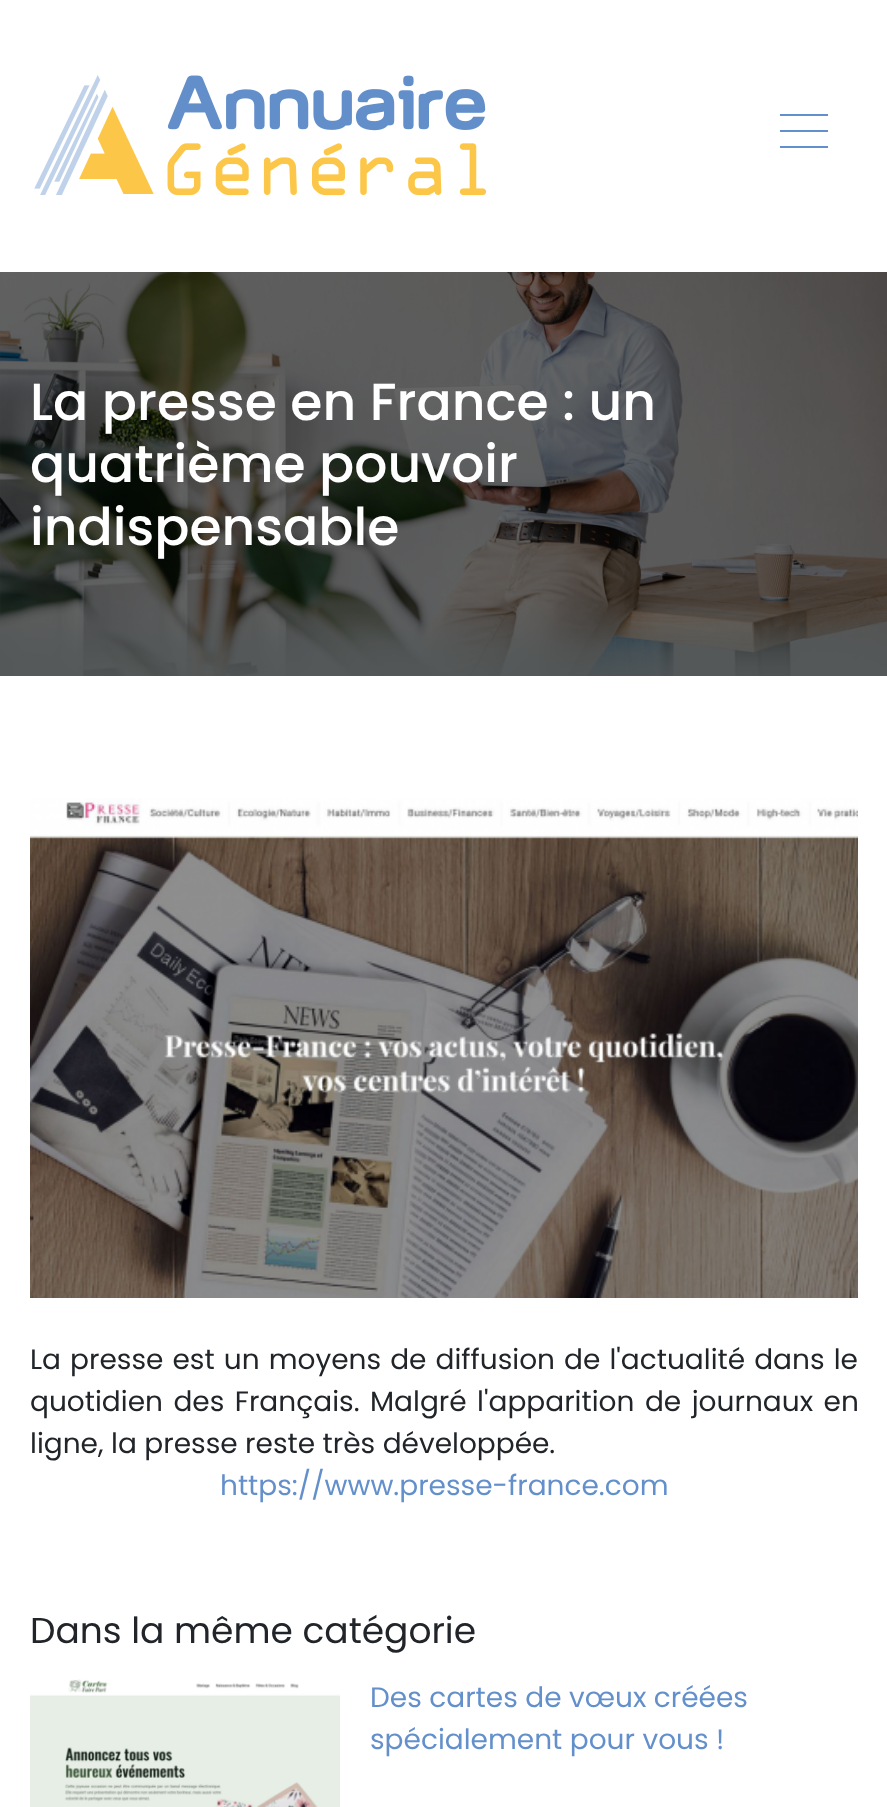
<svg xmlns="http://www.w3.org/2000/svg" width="887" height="1807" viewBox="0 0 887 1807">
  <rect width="100%" height="100%" fill="#ffffff"/>
  <image x="34" y="75" width="453" height="121" href="img1.png"/>
  <rect x="780" y="114" width="48" height="2" fill="#6390cb"/>
  <rect x="780" y="130" width="48" height="2" fill="#6390cb"/>
  <rect x="780" y="146" width="48" height="2" fill="#6390cb"/>
  <image x="0" y="272" width="887" height="404" href="img2.png"/>
  <text x="30" y="420" font-family="Poppins" font-size="52" font-weight="500" fill="#ffffff">La presse en France : un</text>
  <text x="30" y="482" font-family="Poppins" font-size="52" font-weight="500" fill="#ffffff">quatrième pouvoir</text>
  <text x="30" y="545" font-family="Poppins" font-size="52" font-weight="500" fill="#ffffff">indispensable</text>
  <image x="30" y="798" width="828" height="500" href="img3.png"/>
  <text x="30" y="1369" word-spacing="1.6" font-family="Poppins" font-size="28" fill="#212529">La presse est un moyens de diffusion de l'actualité dans le</text>
  <text x="30" y="1411" word-spacing="3" font-family="Poppins" font-size="28" fill="#212529">quotidien des Français. Malgré l'apparition de journaux en</text>
  <text x="30" y="1453" font-family="Poppins" font-size="28" fill="#212529">ligne, la presse reste très développée.</text>
  <text x="220" y="1495" font-family="Poppins" font-size="28" fill="#6390cb">https://www.presse-france.com</text>
  <text x="30" y="1643" font-family="Poppins" font-size="36" fill="#212529">Dans la même catégorie</text>
  <image x="30" y="1679" width="310" height="128" href="img4.png"/>
  <text x="370" y="1707" font-family="Poppins" font-size="28" fill="#6390cb">Des cartes de vœux créées</text>
  <text x="370" y="1749" font-family="Poppins" font-size="28" fill="#6390cb">spécialement pour vous !</text>
</svg>
